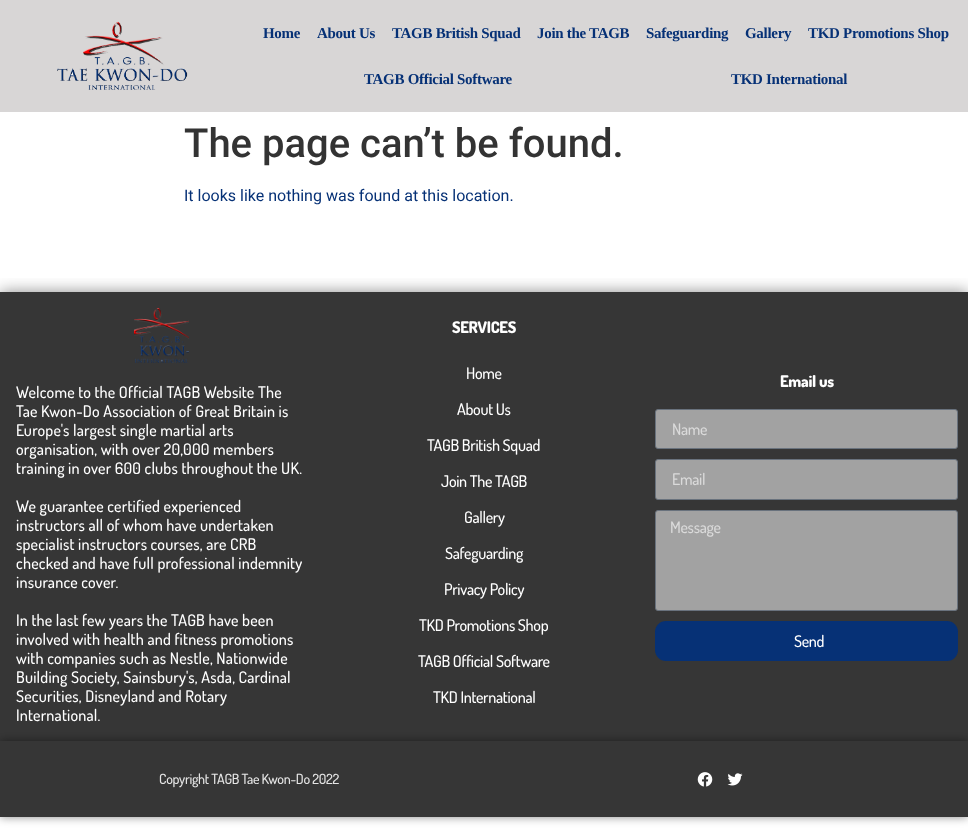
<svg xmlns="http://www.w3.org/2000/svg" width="968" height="833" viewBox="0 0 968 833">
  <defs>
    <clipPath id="clip1"><rect x="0" y="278" width="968" height="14"/></clipPath>
    <filter id="blur1" x="-50%" y="-200%" width="200%" height="500%"><feGaussianBlur stdDeviation="8"/></filter>
    <filter id="blur2" x="-50%" y="-200%" width="200%" height="500%"><feGaussianBlur stdDeviation="5"/></filter>
  </defs>
  <rect width="100%" height="100%" fill="#ffffff"/>
  <rect x="0" y="0" width="968" height="112" fill="#d8d6d6"/>
  <image x="57" y="21" width="131" height="69" href="img1.png"/>
  <text x="263" y="38" font-family="Liberation Serif" font-size="15" font-weight="bold" letter-spacing="-0.3" fill="#063176">Home</text>
  <text x="317" y="38" font-family="Liberation Serif" font-size="15" font-weight="bold" letter-spacing="-0.3" fill="#063176">About Us</text>
  <text x="392" y="38" font-family="Liberation Serif" font-size="15" font-weight="bold" letter-spacing="-0.3" fill="#063176">TAGB British Squad</text>
  <text x="537" y="38" font-family="Liberation Serif" font-size="15" font-weight="bold" letter-spacing="-0.3" fill="#063176">Join the TAGB</text>
  <text x="646" y="38" font-family="Liberation Serif" font-size="15" font-weight="bold" letter-spacing="-0.3" fill="#063176">Safeguarding</text>
  <text x="745" y="38" font-family="Liberation Serif" font-size="15" font-weight="bold" letter-spacing="-0.3" fill="#063176">Gallery</text>
  <text x="808" y="38" font-family="Liberation Serif" font-size="15" font-weight="bold" letter-spacing="-0.3" fill="#063176">TKD Promotions Shop</text>
  <text x="364" y="84" font-family="Liberation Serif" font-size="15" font-weight="bold" letter-spacing="-0.3" fill="#063176">TAGB Official Software</text>
  <text x="731" y="84" font-family="Liberation Serif" font-size="15" font-weight="bold" letter-spacing="-0.3" fill="#063176">TKD International</text>
  <text x="184" y="157" font-family="Roboto" font-size="40" font-weight="500" fill="#333333">The page can’t be found.</text>
  <text x="184" y="201" font-family="Roboto" font-size="16" fill="#063176">It looks like nothing was found at this location.</text>
  <rect x="0" y="292" width="968" height="449" fill="#363636"/>
  <g clip-path="url(#clip1)">
    <rect x="0" y="292" width="968" height="449" fill="#000000" fill-opacity="0.45" filter="url(#blur1)"/>
  </g>
  <image x="134" y="308" width="55" height="55" href="img2.png"/>
  <text x="16" y="398" font-family="Dosis" font-size="16" font-weight="500" letter-spacing="0.2" fill="#ffffff">Welcome to the Official TAGB Website The</text>
  <text x="16" y="417" font-family="Dosis" font-size="16" font-weight="500" letter-spacing="0.2" fill="#ffffff">Tae Kwon-Do Association of Great Britain is</text>
  <text x="16" y="436" font-family="Dosis" font-size="16" font-weight="500" letter-spacing="0.2" fill="#ffffff">Europe's largest single martial arts</text>
  <text x="16" y="455" font-family="Dosis" font-size="16" font-weight="500" letter-spacing="0.2" fill="#ffffff">organisation, with over 20,000 members</text>
  <text x="16" y="474" font-family="Dosis" font-size="16" font-weight="500" letter-spacing="0.2" fill="#ffffff">training in over 600 clubs throughout the UK.</text>
  <text x="16" y="512" font-family="Dosis" font-size="16" font-weight="500" letter-spacing="0.2" fill="#ffffff">We guarantee certified experienced</text>
  <text x="16" y="531" font-family="Dosis" font-size="16" font-weight="500" letter-spacing="0.2" fill="#ffffff">instructors all of whom have undertaken</text>
  <text x="16" y="550" font-family="Dosis" font-size="16" font-weight="500" letter-spacing="0.2" fill="#ffffff">specialist instructors courses, are CRB</text>
  <text x="16" y="569" font-family="Dosis" font-size="16" font-weight="500" letter-spacing="0.2" fill="#ffffff">checked and have full professional indemnity</text>
  <text x="16" y="588" font-family="Dosis" font-size="16" font-weight="500" letter-spacing="0.2" fill="#ffffff">insurance cover.</text>
  <text x="16" y="626" font-family="Dosis" font-size="16" font-weight="500" letter-spacing="0.2" fill="#ffffff">In the last few years the TAGB have been</text>
  <text x="16" y="645" font-family="Dosis" font-size="16" font-weight="500" letter-spacing="0.2" fill="#ffffff">involved with health and fitness promotions</text>
  <text x="16" y="664" font-family="Dosis" font-size="16" font-weight="500" letter-spacing="0.2" fill="#ffffff">with companies such as Nestle, Nationwide</text>
  <text x="16" y="683" font-family="Dosis" font-size="16" font-weight="500" letter-spacing="0.2" fill="#ffffff">Building Society, Sainsbury's, Asda, Cardinal</text>
  <text x="16" y="702" font-family="Dosis" font-size="16" font-weight="500" letter-spacing="0.2" fill="#ffffff">Securities, Disneyland and Rotary</text>
  <text x="16" y="721" font-family="Dosis" font-size="16" font-weight="500" letter-spacing="0.2" fill="#ffffff">International.</text>
  <text x="452" y="333" font-family="Dosis" font-size="16" font-weight="800" letter-spacing="-0.3" fill="#ffffff">SERVICES</text>
  <text x="466" y="379" font-family="Dosis" font-size="16" font-weight="500" letter-spacing="-0.3" fill="#ffffff">Home</text>
  <text x="457" y="415" font-family="Dosis" font-size="16" font-weight="500" letter-spacing="-0.3" fill="#ffffff">About Us</text>
  <text x="427" y="451" font-family="Dosis" font-size="16" font-weight="500" letter-spacing="-0.3" fill="#ffffff">TAGB British Squad</text>
  <text x="441" y="487" font-family="Dosis" font-size="16" font-weight="500" letter-spacing="-0.3" fill="#ffffff">Join The TAGB</text>
  <text x="464" y="523" font-family="Dosis" font-size="16" font-weight="500" letter-spacing="-0.3" fill="#ffffff">Gallery</text>
  <text x="445" y="559" font-family="Dosis" font-size="16" font-weight="500" letter-spacing="-0.3" fill="#ffffff">Safeguarding</text>
  <text x="444" y="595" font-family="Dosis" font-size="16" font-weight="500" letter-spacing="-0.3" fill="#ffffff">Privacy Policy</text>
  <text x="419" y="631" font-family="Dosis" font-size="16" font-weight="500" letter-spacing="-0.3" fill="#ffffff">TKD Promotions Shop</text>
  <text x="418" y="667" font-family="Dosis" font-size="16" font-weight="500" letter-spacing="-0.3" fill="#ffffff">TAGB Official Software</text>
  <text x="433" y="703" font-family="Dosis" font-size="16" font-weight="500" letter-spacing="-0.3" fill="#ffffff">TKD International</text>
  <text x="780" y="387" font-family="Dosis" font-size="16" font-weight="800" letter-spacing="-0.3" fill="#ffffff">Email us</text>
  <rect x="655.5" y="409.5" width="302" height="39" rx="2.5" fill="#a2a2a2" stroke="#69727d"/>
  <text x="672" y="435" font-family="Dosis" font-size="16" font-weight="500" letter-spacing="-0.3" fill="#dadada">Name</text>
  <rect x="655.5" y="459.5" width="302" height="40" rx="2.5" fill="#a2a2a2" stroke="#69727d"/>
  <text x="672" y="485" font-family="Dosis" font-size="16" font-weight="500" letter-spacing="-0.3" fill="#dadada">Email</text>
  <rect x="655.5" y="510.5" width="302" height="100" rx="2.5" fill="#a2a2a2" stroke="#69727d"/>
  <text x="670" y="533" font-family="Dosis" font-size="16" font-weight="500" letter-spacing="-0.3" fill="#dadada">Message</text>
  <rect x="655" y="621" width="303" height="40" rx="11" fill="#063176"/>
  <text x="794" y="647" font-family="Dosis" font-size="16" font-weight="500" letter-spacing="-0.3" fill="#ffffff">Send</text>
  <rect x="0" y="741" width="968" height="76" fill="#000000" fill-opacity="0.45" filter="url(#blur2)"/>
  <rect x="0" y="741" width="968" height="76" fill="#363636"/>
  <text x="159" y="784" font-family="Dosis" font-size="14" font-weight="500" letter-spacing="-0.3" fill="#e5e5e5">Copyright TAGB Tae Kwon-Do 2022</text>
  <image x="697" y="772" width="16" height="15" href="img3.png"/>
  <image x="727" y="773" width="16" height="13" href="img4.png"/>
</svg>
